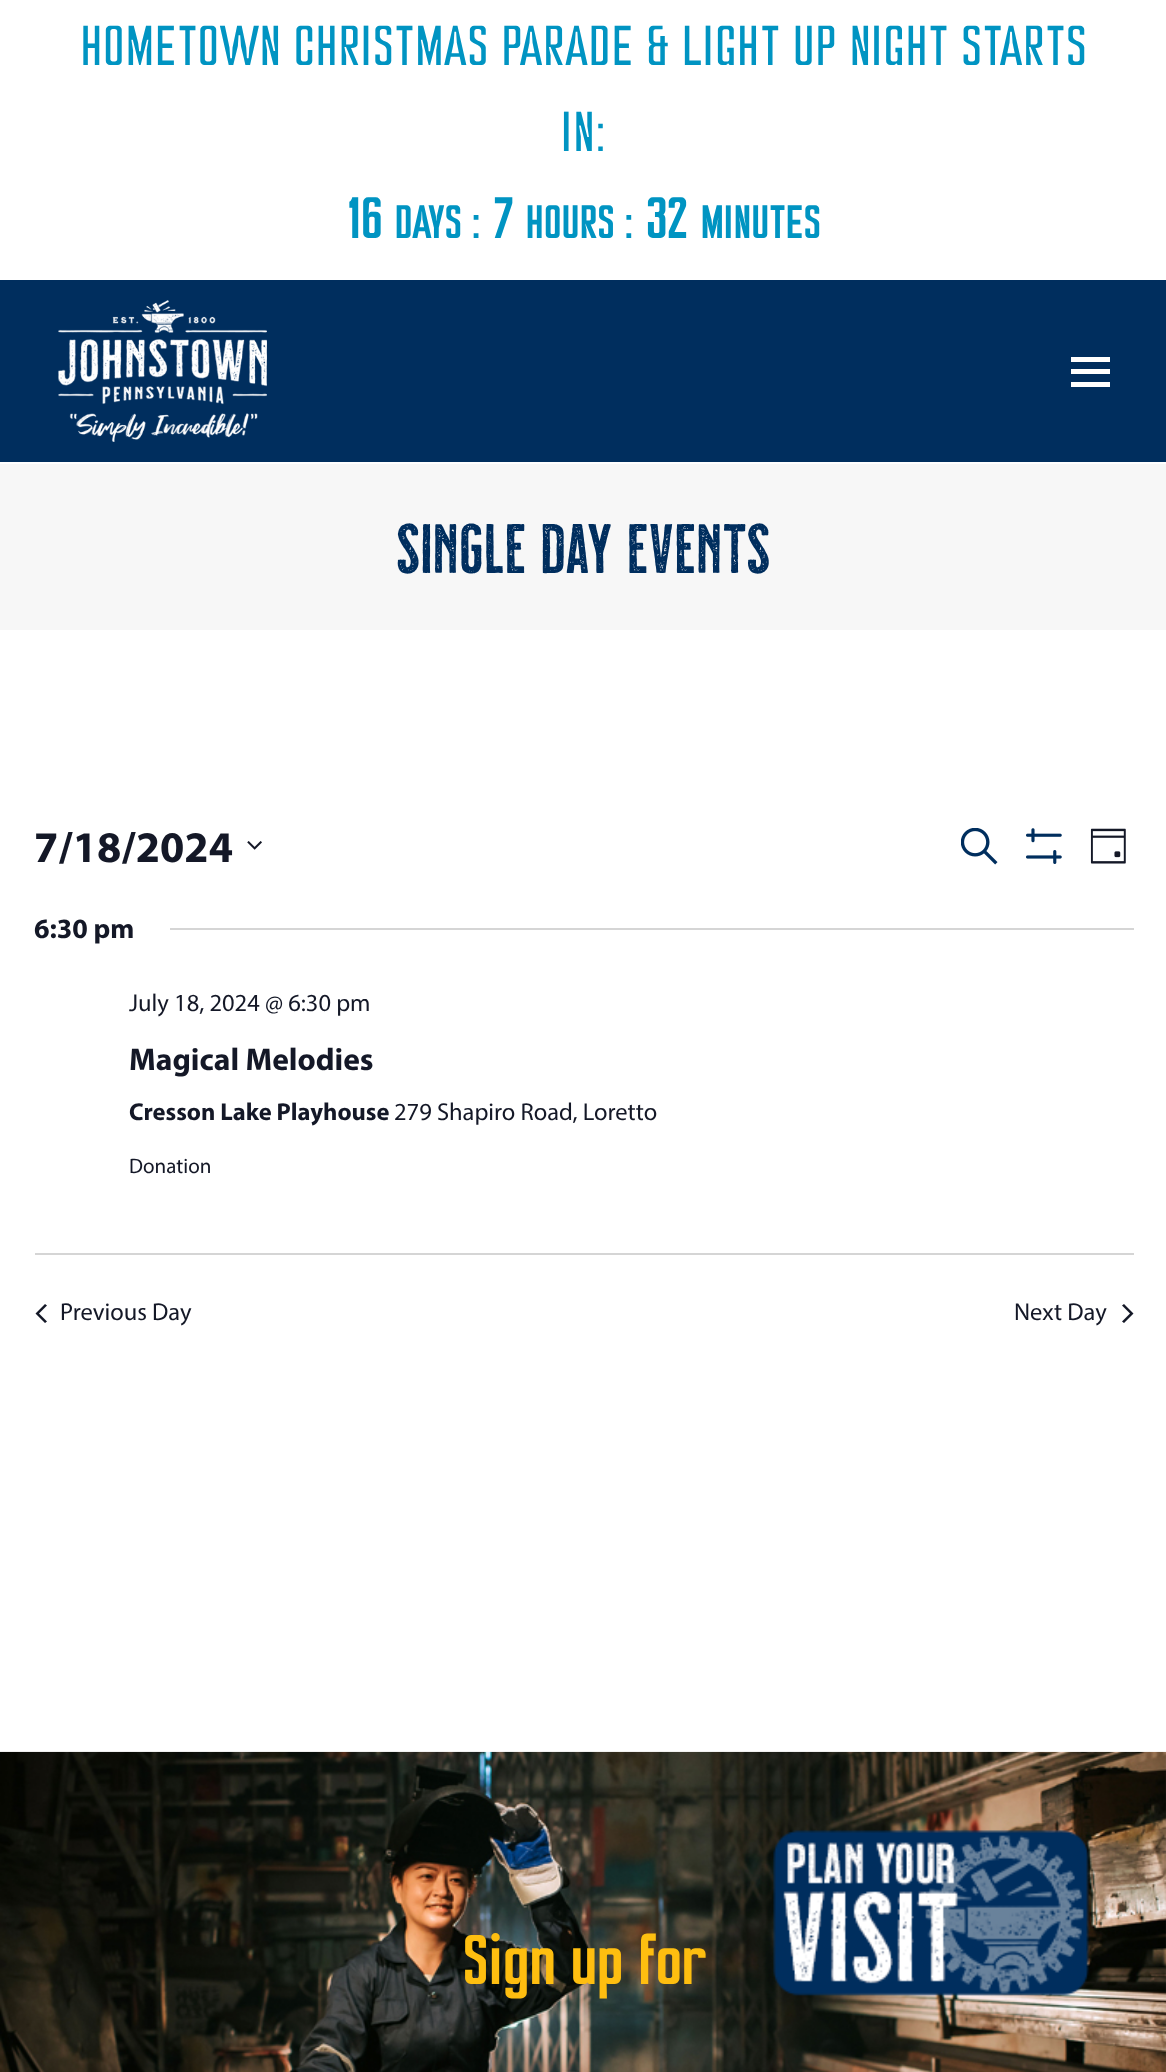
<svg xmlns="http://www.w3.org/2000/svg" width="1166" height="2072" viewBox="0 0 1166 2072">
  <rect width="100%" height="100%" fill="#ffffff"/>
  <text x="80" y="65" font-family="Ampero" font-size="52.5" font-weight="300" fill="#0094c2">HOMETOWN CHRISTMAS PARADE &amp; LIGHT UP NIGHT STARTS</text>
  <text x="561" y="151" font-family="Ampero" font-size="52.5" font-weight="300" fill="#0094c2">IN:</text>
  <text x="346" y="238" font-family="Ampero" font-size="52.5" font-weight="bold" fill="#0094c2">16</text>
  <text x="394" y="238" font-family="Ampero" font-size="42" font-weight="bold" fill="#0094c2">DAYS :</text>
  <text x="492" y="238" font-family="Ampero" font-size="52.5" font-weight="bold" fill="#0094c2">7</text>
  <text x="525" y="238" font-family="Ampero" font-size="42" font-weight="bold" fill="#0094c2">HOURS :</text>
  <text x="645" y="238" font-family="Ampero" font-size="52.5" font-weight="bold" fill="#0094c2">32</text>
  <text x="700" y="238" font-family="Ampero" font-size="42" font-weight="bold" fill="#0094c2">MINUTES</text>
  <rect x="0" y="280" width="1166" height="182" fill="#002e5e"/>
  <image x="58" y="300" width="209" height="142" href="img1.png"/>
  <rect x="1071" y="369" width="39" height="5" fill="#ffffff"/>
  <rect x="1071" y="357" width="39" height="5" fill="#ffffff"/>
  <rect x="1071" y="382" width="39" height="5" fill="#ffffff"/>
  <rect x="0" y="464" width="1166" height="166" fill="#f7f7f7"/>
  <text x="396" y="573" font-family="'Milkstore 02'" font-size="70" fill="#002e5e">SINGLE DAY EVENTS</text>
  <text x="34" y="862" font-family="Myriad" font-size="43.75" font-weight="bold" fill="#141827">7/18/2024</text>
  <image x="247" y="841" width="15" height="9" href="img2.png"/>
  <image x="961" y="828" width="37" height="37" href="img3.png"/>
  <image x="1026" y="828" width="36" height="36" href="img4.png"/>
  <image x="1090" y="828" width="36" height="36" href="img5.png"/>
  <text x="34" y="938" font-family="Myriad" font-size="28" font-weight="bold" fill="#141827">6:30 pm</text>
  <rect x="170" y="928" width="964" height="2" fill="#d5d5d5"/>
  <text x="129" y="1011" font-family="Myriad" font-size="24.5" fill="#141827">July 18, 2024 @ 6:30 pm</text>
  <text x="129" y="1070" font-family="Myriad" font-size="31.5" font-weight="bold" fill="#141827">Magical Melodies</text>
  <text x="129" y="1120" font-family="Myriad" font-size="24.5" font-weight="bold" fill="#141827">Cresson Lake Playhouse</text>
  <text x="394" y="1120" font-family="Myriad" font-size="24.5" fill="#141827">279 Shapiro Road, Loretto</text>
  <text x="129" y="1173" font-family="Myriad" font-size="21" fill="#141827">Donation</text>
  <rect x="35" y="1253" width="1099" height="2" fill="#d5d5d5"/>
  <path d="M47 1321.5L45 1323L35.5 1313.5L45 1304L47 1305.5L39 1313.5Z" fill="#141827"/>
  <text x="60" y="1320" font-family="Myriad" font-size="24.5" fill="#141827">Previous Day</text>
  <text x="1014" y="1320" font-family="Myriad" font-size="24.5" fill="#141827">Next Day</text>
  <path d="M1122 1305.5L1124 1304L1133.5 1313.5L1124 1323L1122 1321.5L1130 1313.5Z" fill="#141827"/>
  <image x="0" y="1751" width="1166" height="321" href="img6.png"/>
  <text x="462" y="1984" font-family="Ampero" font-size="63" font-weight="bold" fill="#febe10">Sign up for</text>
  <image x="773" y="1830" width="316" height="166" href="img7.png"/>
</svg>
